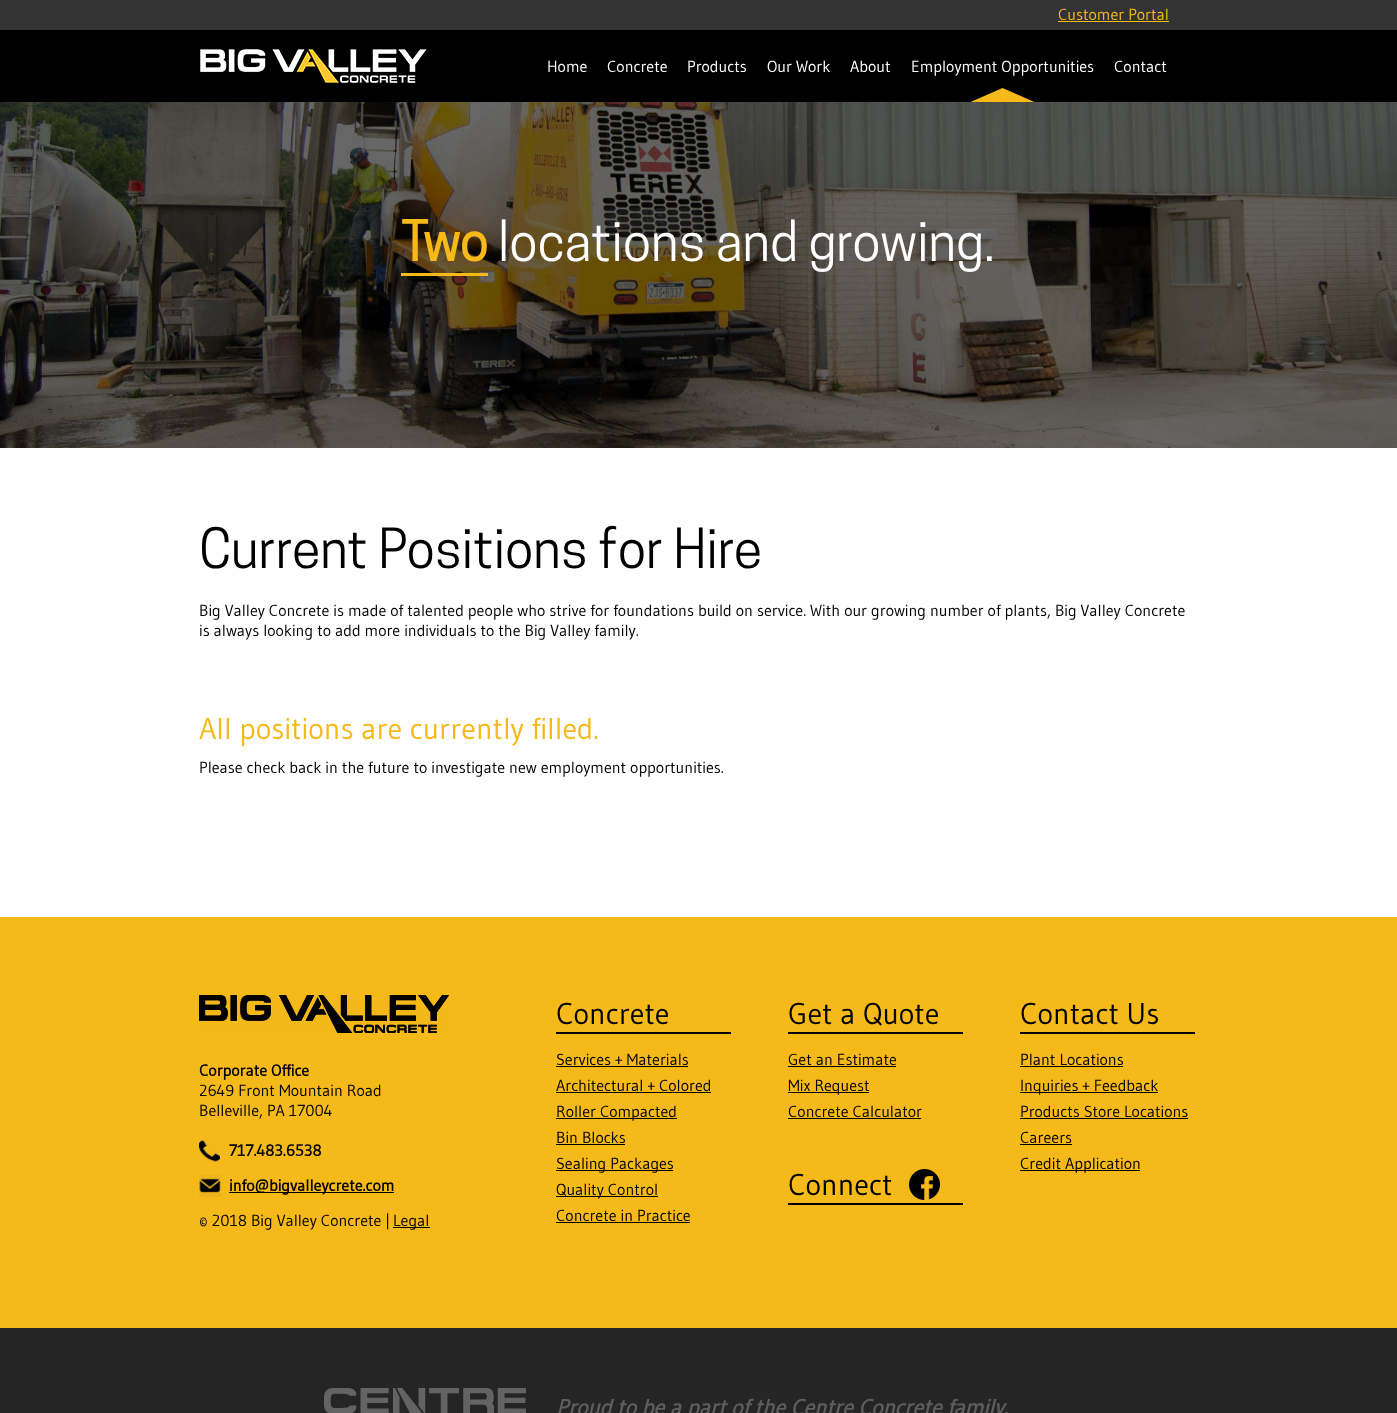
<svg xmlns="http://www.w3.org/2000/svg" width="1397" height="1413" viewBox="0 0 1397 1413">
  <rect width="100%" height="100%" fill="#ffffff"/>
  <rect x="0" y="0" width="1397" height="30" fill="#333333"/>
  <text x="1058" y="20" font-family="Gudea" font-size="16" fill="#f6b91a">Customer Portal</text>
  <rect x="1058" y="21" width="111" height="1" fill="#f6b91a"/>
  <rect x="0" y="30" width="1397" height="72" fill="#000000"/>
  <image x="200" y="49" width="227" height="34" href="img1.png"/>
  <text x="547" y="72" font-family="Gudea" font-size="16" fill="#ffffff">Home</text>
  <text x="607" y="72" font-family="Gudea" font-size="16" fill="#ffffff">Concrete</text>
  <text x="687" y="72" font-family="Gudea" font-size="16" fill="#ffffff">Products</text>
  <text x="767" y="72" font-family="Gudea" font-size="16" fill="#ffffff">Our Work</text>
  <text x="850" y="72" font-family="Gudea" font-size="16" fill="#ffffff">About</text>
  <image x="970" y="88" width="65" height="14" href="img2.png"/>
  <text x="911" y="72" font-family="Gudea" font-size="16" fill="#ffffff">Employment Opportunities</text>
  <text x="1114" y="72" font-family="Gudea" font-size="16" fill="#ffffff">Contact</text>
  <image x="0" y="102" width="1397" height="346" href="img3.png"/>
  <text x="401" y="261" font-family="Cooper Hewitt" font-size="52" font-weight="bold" fill="#f6b91a">Two</text>
  <rect x="401" y="273" width="87" height="3" fill="#f6b91a"/>
  <text x="498" y="261" font-family="Cooper Hewitt" font-size="52" fill="#ffffff">locations and growing.</text>
  <text x="199" y="568" font-family="Cooper Hewitt" font-size="52" fill="#000000">Current Positions for Hire</text>
  <text x="199" y="616" font-family="Gudea" font-size="16" fill="#000000">Big Valley Concrete is made of talented people who strive for foundations build on service. With our growing number of plants, Big Valley Concrete</text>
  <text x="199" y="636" font-family="Gudea" font-size="16" fill="#000000">is always looking to add more individuals to the Big Valley family.</text>
  <text x="199" y="739" font-family="Gudea" font-size="30" fill="#f6b91a">All positions are currently filled.</text>
  <text x="199" y="773" font-family="Gudea" font-size="16" fill="#000000">Please check back in the future to investigate new employment opportunities.</text>
  <rect x="0" y="917" width="1397" height="411" fill="#f6b91a"/>
  <image x="199" y="995" width="250" height="38" href="img4.png"/>
  <text x="199" y="1076" font-family="Gudea" font-size="16" font-weight="bold" fill="#000000">Corporate Office</text>
  <text x="199" y="1096" font-family="Gudea" font-size="16" fill="#000000">2649 Front Mountain Road</text>
  <text x="199" y="1116" font-family="Gudea" font-size="16" fill="#000000">Belleville, PA 17004</text>
  <image x="199" y="1140" width="21" height="22" href="img5.png"/>
  <text x="229" y="1156" font-family="Gudea" font-size="16" font-weight="bold" fill="#000000">717.483.6538</text>
  <image x="199" y="1175" width="23" height="22" href="img6.png"/>
  <rect x="229" y="1192" width="165" height="1" fill="#000000"/>
  <text x="229" y="1191" font-family="Gudea" font-size="16" font-weight="bold" fill="#000000">info@bigvalleycrete.com</text>
  <text x="199" y="1226" font-family="Gudea" font-size="16" fill="#000000">© 2018 Big Valley Concrete |</text>
  <rect x="393" y="1227" width="37" height="1" fill="#000000"/>
  <text x="393" y="1226" font-family="Gudea" font-size="16" fill="#000000">Legal</text>
  <rect x="556" y="1032" width="175" height="2" fill="#000000"/>
  <text x="556" y="1024" font-family="Gudea" font-size="30" fill="#000000">Concrete</text>
  <text x="556" y="1065" font-family="Gudea" font-size="16" fill="#000000">Services + Materials</text>
  <rect x="556" y="1066" width="132" height="1" fill="#000000"/>
  <text x="556" y="1091" font-family="Gudea" font-size="16" fill="#000000">Architectural + Colored</text>
  <rect x="556" y="1092" width="155" height="1" fill="#000000"/>
  <rect x="556" y="1118" width="121" height="1" fill="#000000"/>
  <text x="556" y="1117" font-family="Gudea" font-size="16" fill="#000000">Roller Compacted</text>
  <text x="556" y="1143" font-family="Gudea" font-size="16" fill="#000000">Bin Blocks</text>
  <rect x="556" y="1144" width="69" height="1" fill="#000000"/>
  <rect x="556" y="1170" width="117" height="1" fill="#000000"/>
  <text x="556" y="1169" font-family="Gudea" font-size="16" fill="#000000">Sealing Packages</text>
  <rect x="556" y="1196" width="102" height="1" fill="#000000"/>
  <text x="556" y="1195" font-family="Gudea" font-size="16" fill="#000000">Quality Control</text>
  <text x="556" y="1221" font-family="Gudea" font-size="16" fill="#000000">Concrete in Practice</text>
  <rect x="556" y="1222" width="134" height="1" fill="#000000"/>
  <rect x="788" y="1032" width="175" height="2" fill="#000000"/>
  <text x="788" y="1024" font-family="Gudea" font-size="30" fill="#000000">Get a Quote</text>
  <text x="788" y="1065" font-family="Gudea" font-size="16" fill="#000000">Get an Estimate</text>
  <rect x="788" y="1066" width="108" height="1" fill="#000000"/>
  <rect x="788" y="1092" width="81" height="1" fill="#000000"/>
  <text x="788" y="1091" font-family="Gudea" font-size="16" fill="#000000">Mix Request</text>
  <text x="788" y="1117" font-family="Gudea" font-size="16" fill="#000000">Concrete Calculator</text>
  <rect x="788" y="1118" width="133" height="1" fill="#000000"/>
  <rect x="788" y="1203" width="175" height="2" fill="#000000"/>
  <text x="788" y="1195" font-family="Gudea" font-size="30" fill="#000000">Connect</text>
  <image x="909" y="1169" width="31" height="31" href="img7.png"/>
  <rect x="1020" y="1032" width="175" height="2" fill="#000000"/>
  <text x="1020" y="1024" font-family="Gudea" font-size="30" fill="#000000">Contact Us</text>
  <text x="1020" y="1065" font-family="Gudea" font-size="16" fill="#000000">Plant Locations</text>
  <rect x="1020" y="1066" width="103" height="1" fill="#000000"/>
  <rect x="1020" y="1092" width="138" height="1" fill="#000000"/>
  <text x="1020" y="1091" font-family="Gudea" font-size="16" fill="#000000">Inquiries + Feedback</text>
  <text x="1020" y="1117" font-family="Gudea" font-size="16" fill="#000000">Products Store Locations</text>
  <rect x="1020" y="1118" width="168" height="1" fill="#000000"/>
  <text x="1020" y="1143" font-family="Gudea" font-size="16" fill="#000000">Careers</text>
  <rect x="1020" y="1144" width="52" height="1" fill="#000000"/>
  <rect x="1020" y="1170" width="120" height="1" fill="#000000"/>
  <text x="1020" y="1169" font-family="Gudea" font-size="16" fill="#000000">Credit Application</text>
  <rect x="0" y="1328" width="1397" height="85" fill="#262525"/>
  <image x="324" y="1388" width="202" height="25" href="img8.png"/>
  <text x="556" y="1415" font-family="Gudea" font-size="22" font-weight="bold" font-style="italic" fill="#5e5e5e">Proud to be a part of the Centre Concrete family.</text>
</svg>
